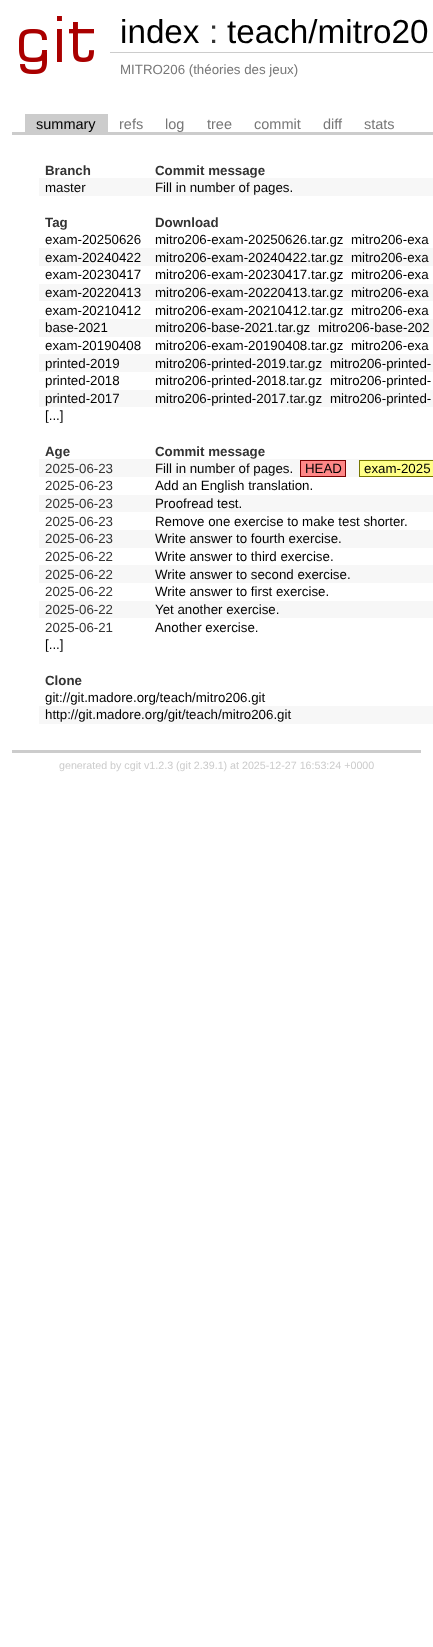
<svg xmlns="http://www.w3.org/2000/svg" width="433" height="1647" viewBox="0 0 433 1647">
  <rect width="100%" height="100%" fill="#ffffff"/>
  <image x="19" y="16" width="75" height="58" href="img1.png"/>
  <text x="120" y="43" font-family="Liberation Sans" font-size="33.25" fill="#000000">index</text>
  <text x="209" y="43" font-family="Liberation Sans" font-size="33.25" fill="#333333">:</text>
  <text x="227" y="43" font-family="Liberation Sans" font-size="33.25" fill="#000000">teach/mitro20</text>
  <rect x="110" y="52" width="323" height="1" fill="#cccccc"/>
  <text x="120" y="74" font-family="Liberation Sans" font-size="13.3" fill="#777777">MITRO206 (théories des jeux)</text>
  <rect x="12" y="132" width="421" height="3" fill="#cccccc"/>
  <rect x="25" y="114" width="83" height="18" fill="#cccccc"/>
  <text x="36" y="129" font-family="Liberation Sans" font-size="14.5" fill="#000000">summary</text>
  <text x="119" y="129" font-family="Liberation Sans" font-size="14.5" fill="#777777">refs</text>
  <text x="165" y="129" font-family="Liberation Sans" font-size="14.5" fill="#777777">log</text>
  <text x="207" y="129" font-family="Liberation Sans" font-size="14.5" fill="#777777">tree</text>
  <text x="254" y="129" font-family="Liberation Sans" font-size="14.5" fill="#777777">commit</text>
  <text x="323" y="129" font-family="Liberation Sans" font-size="14.5" fill="#777777">diff</text>
  <text x="364" y="129" font-family="Liberation Sans" font-size="14.5" fill="#777777">stats</text>
  <rect x="12" y="750" width="409" height="3" fill="#cccccc"/>
  <text x="45" y="175" font-family="Liberation Sans" font-size="13.3" font-weight="bold" fill="#333333">Branch</text>
  <text x="155" y="175" font-family="Liberation Sans" font-size="13.3" font-weight="bold" fill="#333333">Commit message</text>
  <rect x="39" y="178" width="394" height="18" fill="#f7f7f7"/>
  <text x="45" y="192" font-family="Liberation Sans" font-size="13.3" fill="#000000">master</text>
  <text x="155" y="192" font-family="Liberation Sans" font-size="13.3" fill="#000000">Fill in number of pages.</text>
  <text x="45" y="227" font-family="Liberation Sans" font-size="13.3" font-weight="bold" fill="#333333">Tag</text>
  <text x="155" y="227" font-family="Liberation Sans" font-size="13.3" font-weight="bold" fill="#333333">Download</text>
  <text x="45" y="244" font-family="Liberation Sans" font-size="13.3" fill="#000000">exam-20250626</text>
  <text x="155" y="244" font-family="Liberation Sans" font-size="13.3" fill="#000000">mitro206-exam-20250626.tar.gz</text>
  <text x="351" y="244" font-family="Liberation Sans" font-size="13.3" fill="#000000">mitro206-exa</text>
  <rect x="39" y="248" width="394" height="18" fill="#f7f7f7"/>
  <text x="45" y="262" font-family="Liberation Sans" font-size="13.3" fill="#000000">exam-20240422</text>
  <text x="155" y="262" font-family="Liberation Sans" font-size="13.3" fill="#000000">mitro206-exam-20240422.tar.gz</text>
  <text x="351" y="262" font-family="Liberation Sans" font-size="13.3" fill="#000000">mitro206-exa</text>
  <text x="45" y="279" font-family="Liberation Sans" font-size="13.3" fill="#000000">exam-20230417</text>
  <text x="155" y="279" font-family="Liberation Sans" font-size="13.3" fill="#000000">mitro206-exam-20230417.tar.gz</text>
  <text x="351" y="279" font-family="Liberation Sans" font-size="13.3" fill="#000000">mitro206-exa</text>
  <rect x="39" y="284" width="394" height="17" fill="#f7f7f7"/>
  <text x="45" y="297" font-family="Liberation Sans" font-size="13.3" fill="#000000">exam-20220413</text>
  <text x="155" y="297" font-family="Liberation Sans" font-size="13.3" fill="#000000">mitro206-exam-20220413.tar.gz</text>
  <text x="351" y="297" font-family="Liberation Sans" font-size="13.3" fill="#000000">mitro206-exa</text>
  <text x="45" y="315" font-family="Liberation Sans" font-size="13.3" fill="#000000">exam-20210412</text>
  <text x="155" y="315" font-family="Liberation Sans" font-size="13.3" fill="#000000">mitro206-exam-20210412.tar.gz</text>
  <text x="351" y="315" font-family="Liberation Sans" font-size="13.3" fill="#000000">mitro206-exa</text>
  <rect x="39" y="319" width="394" height="18" fill="#f7f7f7"/>
  <text x="45" y="332" font-family="Liberation Sans" font-size="13.3" fill="#000000">base-2021</text>
  <text x="155" y="332" font-family="Liberation Sans" font-size="13.3" fill="#000000">mitro206-base-2021.tar.gz</text>
  <text x="318" y="332" font-family="Liberation Sans" font-size="13.3" fill="#000000">mitro206-base-202</text>
  <text x="45" y="350" font-family="Liberation Sans" font-size="13.3" fill="#000000">exam-20190408</text>
  <text x="155" y="350" font-family="Liberation Sans" font-size="13.3" fill="#000000">mitro206-exam-20190408.tar.gz</text>
  <text x="351" y="350" font-family="Liberation Sans" font-size="13.3" fill="#000000">mitro206-exa</text>
  <rect x="39" y="354" width="394" height="18" fill="#f7f7f7"/>
  <text x="45" y="368" font-family="Liberation Sans" font-size="13.3" fill="#000000">printed-2019</text>
  <text x="155" y="368" font-family="Liberation Sans" font-size="13.3" fill="#000000">mitro206-printed-2019.tar.gz</text>
  <text x="330" y="368" font-family="Liberation Sans" font-size="13.3" fill="#000000">mitro206-printed-</text>
  <text x="45" y="385" font-family="Liberation Sans" font-size="13.3" fill="#000000">printed-2018</text>
  <text x="155" y="385" font-family="Liberation Sans" font-size="13.3" fill="#000000">mitro206-printed-2018.tar.gz</text>
  <text x="330" y="385" font-family="Liberation Sans" font-size="13.3" fill="#000000">mitro206-printed-</text>
  <rect x="39" y="390" width="394" height="17" fill="#f7f7f7"/>
  <text x="45" y="403" font-family="Liberation Sans" font-size="13.3" fill="#000000">printed-2017</text>
  <text x="155" y="403" font-family="Liberation Sans" font-size="13.3" fill="#000000">mitro206-printed-2017.tar.gz</text>
  <text x="330" y="403" font-family="Liberation Sans" font-size="13.3" fill="#000000">mitro206-printed-</text>
  <text x="45" y="420" font-family="Liberation Sans" font-size="13.3" fill="#000000">[...]</text>
  <text x="45" y="456" font-family="Liberation Sans" font-size="13.3" font-weight="bold" fill="#333333">Age</text>
  <text x="155" y="456" font-family="Liberation Sans" font-size="13.3" font-weight="bold" fill="#333333">Commit message</text>
  <rect x="39" y="459" width="394" height="18" fill="#f7f7f7"/>
  <text x="45" y="473" font-family="Liberation Sans" font-size="13.3" fill="#333333">2025-06-23</text>
  <text x="155" y="473" font-family="Liberation Sans" font-size="13.3" fill="#000000">Fill in number of pages.</text>
  <rect x="300.5" y="460.5" width="45" height="16" fill="#ff8888" stroke="#770000"/>
  <text x="305" y="473" font-family="Liberation Sans" font-size="13.3" fill="#000000">HEAD</text>
  <rect x="359.5" y="460.5" width="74" height="16" fill="#ffff88" stroke="#777700"/>
  <text x="364" y="473" font-family="Liberation Sans" font-size="13.3" fill="#000000">exam-2025</text>
  <text x="45" y="490" font-family="Liberation Sans" font-size="13.3" fill="#333333">2025-06-23</text>
  <text x="155" y="490" font-family="Liberation Sans" font-size="13.3" fill="#000000">Add an English translation.</text>
  <rect x="39" y="495" width="394" height="17" fill="#f7f7f7"/>
  <text x="45" y="508" font-family="Liberation Sans" font-size="13.3" fill="#333333">2025-06-23</text>
  <text x="155" y="508" font-family="Liberation Sans" font-size="13.3" fill="#000000">Proofread test.</text>
  <text x="45" y="526" font-family="Liberation Sans" font-size="13.3" fill="#333333">2025-06-23</text>
  <text x="155" y="526" font-family="Liberation Sans" font-size="13.3" fill="#000000">Remove one exercise to make test shorter.</text>
  <rect x="39" y="530" width="394" height="18" fill="#f7f7f7"/>
  <text x="45" y="543" font-family="Liberation Sans" font-size="13.3" fill="#333333">2025-06-23</text>
  <text x="155" y="543" font-family="Liberation Sans" font-size="13.3" fill="#000000">Write answer to fourth exercise.</text>
  <text x="45" y="561" font-family="Liberation Sans" font-size="13.3" fill="#333333">2025-06-22</text>
  <text x="155" y="561" font-family="Liberation Sans" font-size="13.3" fill="#000000">Write answer to third exercise.</text>
  <rect x="39" y="565" width="394" height="18" fill="#f7f7f7"/>
  <text x="45" y="579" font-family="Liberation Sans" font-size="13.3" fill="#333333">2025-06-22</text>
  <text x="155" y="579" font-family="Liberation Sans" font-size="13.3" fill="#000000">Write answer to second exercise.</text>
  <text x="45" y="596" font-family="Liberation Sans" font-size="13.3" fill="#333333">2025-06-22</text>
  <text x="155" y="596" font-family="Liberation Sans" font-size="13.3" fill="#000000">Write answer to first exercise.</text>
  <rect x="39" y="601" width="394" height="17" fill="#f7f7f7"/>
  <text x="45" y="614" font-family="Liberation Sans" font-size="13.3" fill="#333333">2025-06-22</text>
  <text x="155" y="614" font-family="Liberation Sans" font-size="13.3" fill="#000000">Yet another exercise.</text>
  <text x="45" y="632" font-family="Liberation Sans" font-size="13.3" fill="#333333">2025-06-21</text>
  <text x="155" y="632" font-family="Liberation Sans" font-size="13.3" fill="#000000">Another exercise.</text>
  <text x="45" y="649" font-family="Liberation Sans" font-size="13.3" fill="#000000">[...]</text>
  <text x="45" y="685" font-family="Liberation Sans" font-size="13.3" font-weight="bold" fill="#333333">Clone</text>
  <text x="45" y="702" font-family="Liberation Sans" font-size="13.3" fill="#000000">git://git.madore.org/teach/mitro206.git</text>
  <rect x="39" y="706" width="394" height="18" fill="#f7f7f7"/>
  <text x="45" y="719" font-family="Liberation Sans" font-size="13.3" fill="#000000">http://git.madore.org/git/teach/mitro206.git</text>
  <text x="59" y="769" font-family="Liberation Sans" font-size="10.7" fill="#cccccc">generated by cgit v1.2.3 (git 2.39.1) at 2025-12-27 16:53:24 +0000</text>
</svg>
